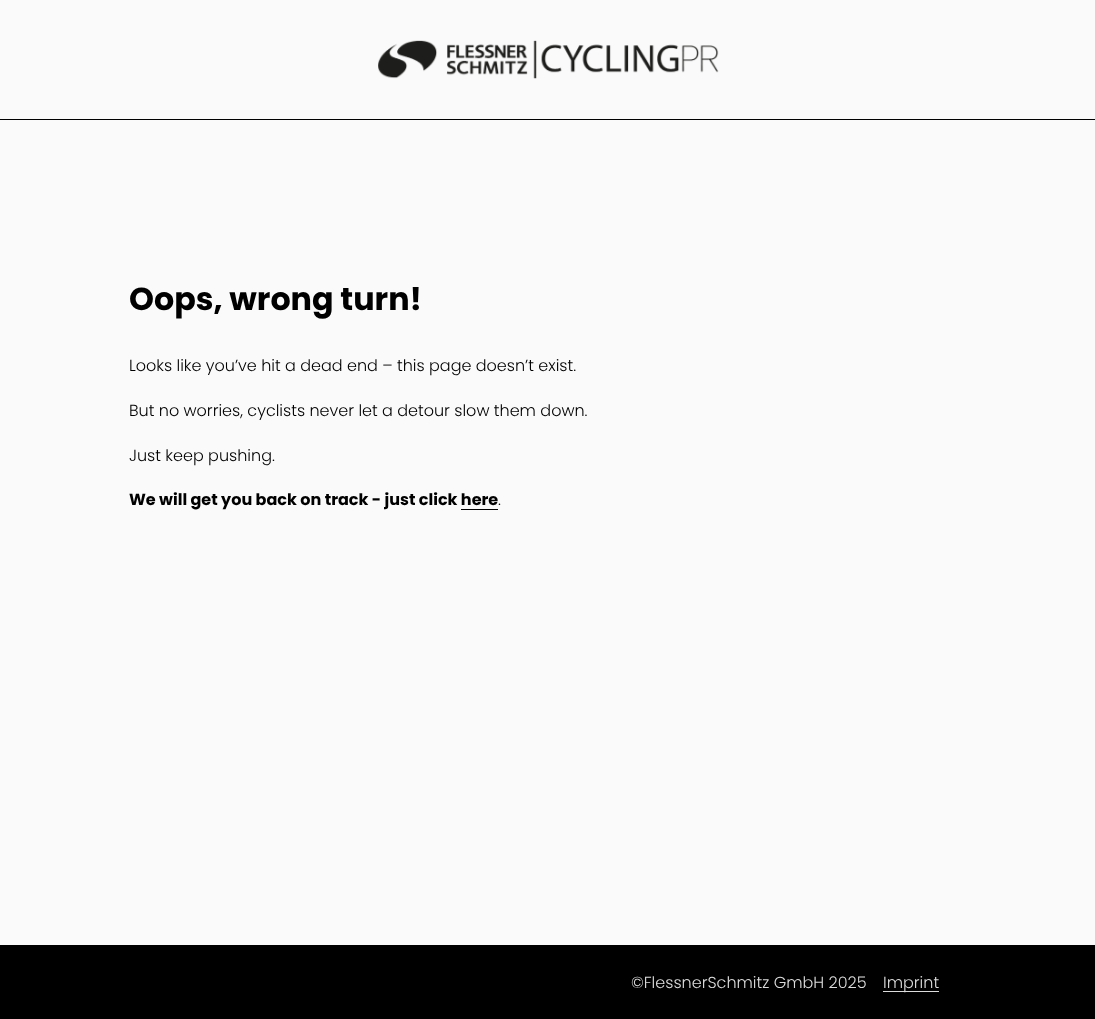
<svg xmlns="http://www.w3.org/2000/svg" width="1095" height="1019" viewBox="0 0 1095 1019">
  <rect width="100%" height="100%" fill="#fafafa"/>
  <image x="378" y="40" width="341" height="39" href="img1.png"/>
  <rect x="0" y="119" width="1095" height="1" fill="#000000"/>
  <text x="129" y="310" font-family="Poppins" font-size="31.75" font-weight="bold" fill="#000000">Oops, wrong turn!</text>
  <text x="129" y="371" font-family="Poppins" font-size="16" font-weight="300" fill="#000000">Looks like you’ve hit a dead end – this page doesn’t exist.</text>
  <text x="129" y="416" font-family="Poppins" font-size="16" font-weight="300" fill="#000000">But no worries, cyclists never let a detour slow them down.</text>
  <text x="129" y="461" font-family="Poppins" font-size="16" font-weight="300" fill="#000000">Just keep pushing.</text>
  <text x="129" y="505" font-family="Poppins" font-size="16" font-weight="bold" fill="#000000">We will get you back on track - just click here</text>
  <text x="498" y="505" font-family="Poppins" font-size="16" font-weight="300" fill="#000000">.</text>
  <rect x="461" y="509" width="37" height="1" fill="#000000"/>
  <rect x="0" y="945" width="1095" height="74" fill="#000000"/>
  <text x="631" y="988" font-family="Poppins" font-size="16" font-weight="300" fill="#dcdcdc">©FlessnerSchmitz GmbH 2025</text>
  <rect x="883" y="991" width="56" height="1" fill="#dcdcdc"/>
  <text x="883" y="988" font-family="Poppins" font-size="16" font-weight="300" fill="#dcdcdc">Imprint</text>
</svg>
